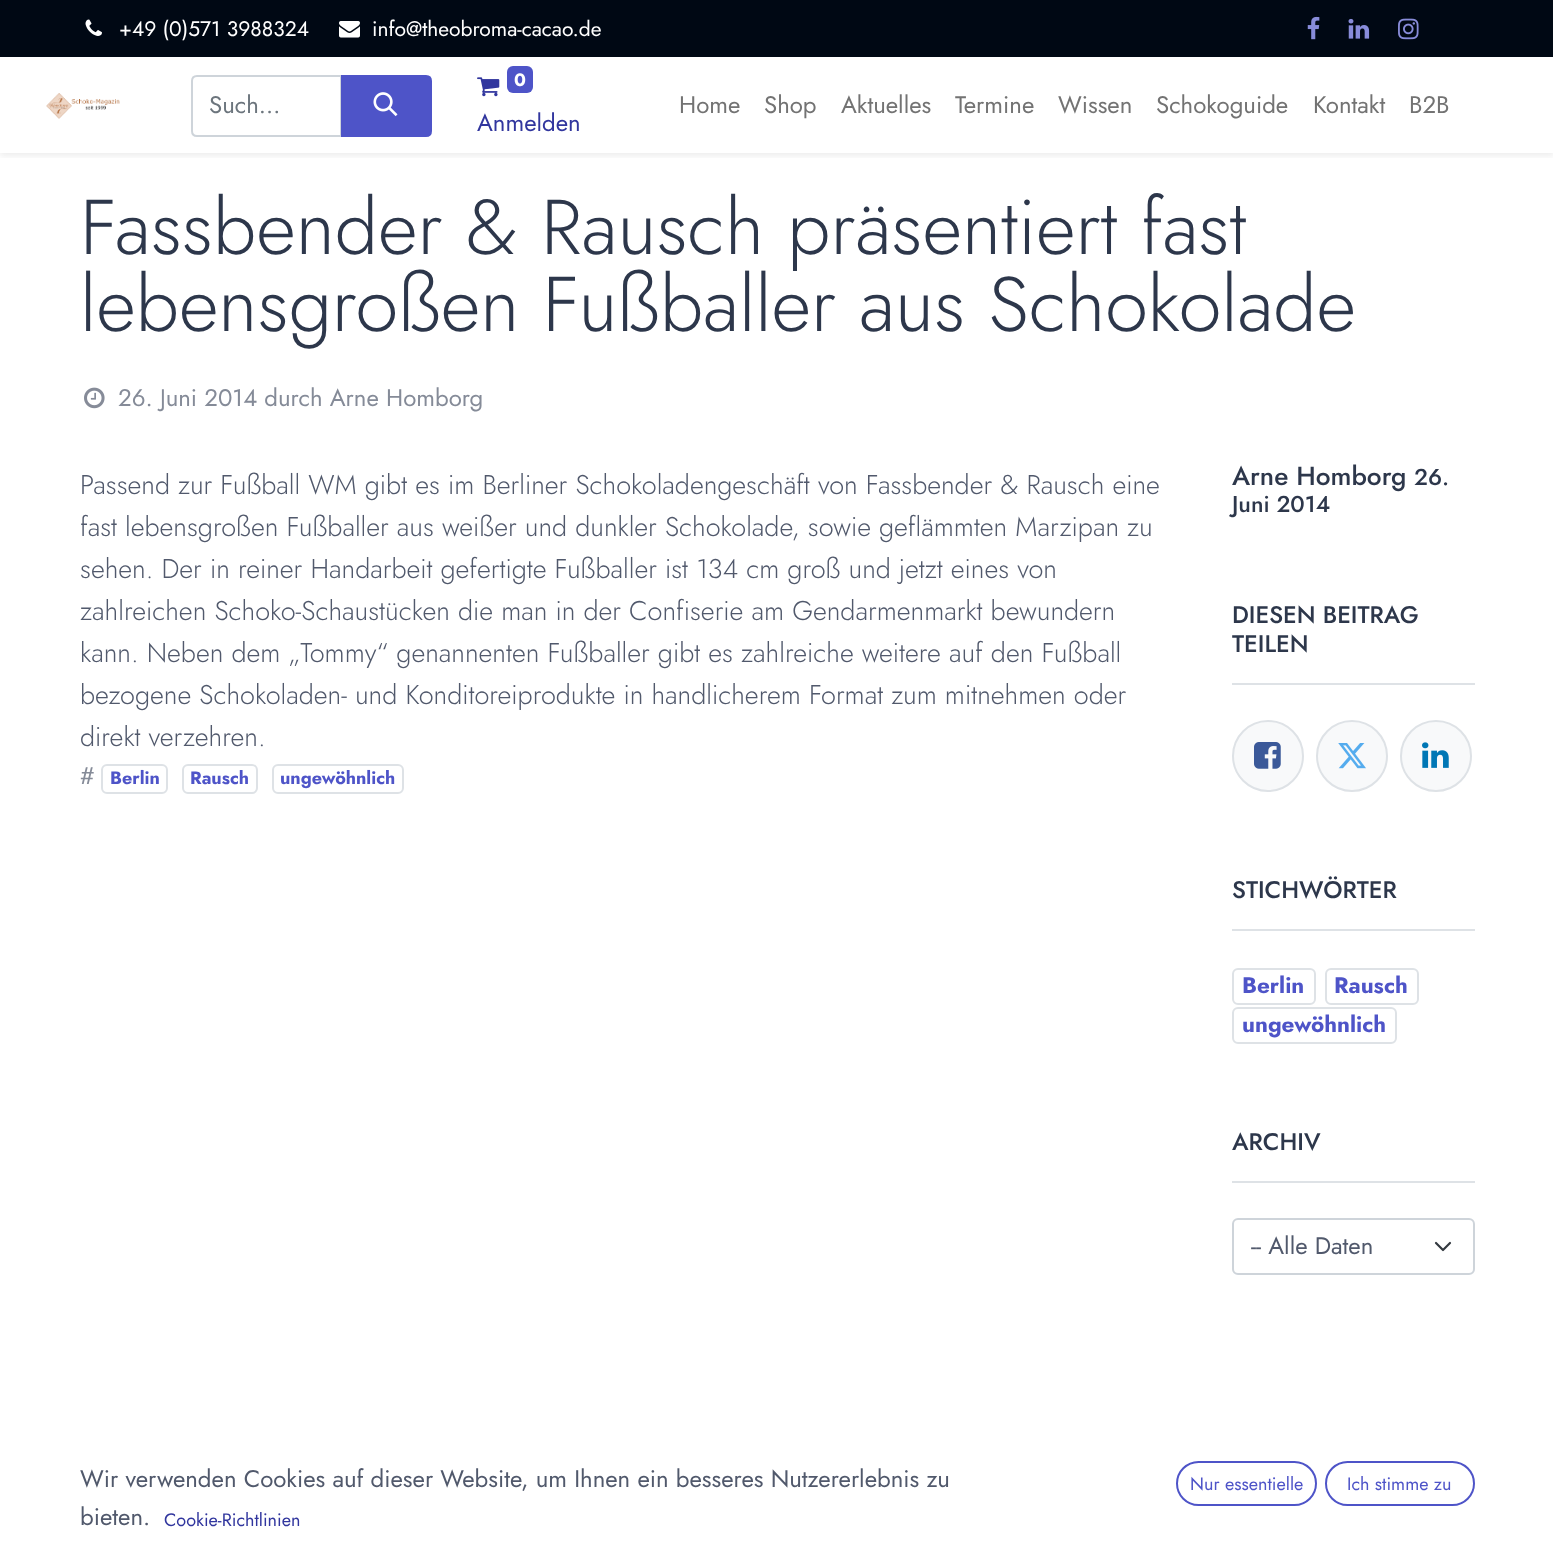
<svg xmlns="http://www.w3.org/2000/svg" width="1553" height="1566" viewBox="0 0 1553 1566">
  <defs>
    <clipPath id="clip1"><rect x="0" y="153" width="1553" height="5"/></clipPath>
    <filter id="blur1" x="-50%" y="-200%" width="200%" height="500%"><feGaussianBlur stdDeviation="3"/></filter>
  </defs>
  <rect width="100%" height="100%" fill="#ffffff"/>
  <rect x="0" y="0" width="1553" height="57" fill="#000814"/>
  <image x="85" y="19" width="17" height="17" href="img1.png"/>
  <text x="119" y="36" font-family="Jost" font-size="21" fill="#ffffff">+49 (0)571 3988324</text>
  <image x="339" y="21" width="21" height="17" href="img2.png"/>
  <text x="372" y="36" font-family="Jost" font-size="21" fill="#ffffff">info@theobroma-cacao.de</text>
  <image x="1307" y="16" width="13" height="24" href="img3.png"/>
  <image x="1348" y="18" width="22" height="21" href="img4.png"/>
  <image x="1398" y="18" width="21" height="22" href="img5.png"/>
  <g clip-path="url(#clip1)">
    <rect x="0" y="60" width="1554" height="96" fill="#000000" fill-opacity="0.07" filter="url(#blur1)"/>
  </g>
  <image x="46" y="93" width="74" height="26" href="img6.png"/>
  <path d="M197 76H341V136H197C194 136 192 134 192 131V81C192 78 194 76 197 76Z" fill="none" stroke="#ced4da" stroke-width="2"/>
  <text x="209" y="113" font-family="Jost" font-size="24" fill="#6c757d">Such…</text>
  <path d="M342 76H426C429 76 431 78 431 81V131C431 134 429 136 426 136H342Z" fill="#4e54c8" stroke="#4e54c8" stroke-width="2"/>
  <image x="373" y="92" width="25" height="25" href="img7.png"/>
  <image x="477" y="77" width="23" height="20" href="img8.png"/>
  <rect x="507" y="66" width="26" height="27" rx="6" fill="#4e54c8"/>
  <text x="514" y="86" font-family="Jost" font-size="18" font-weight="bold" fill="#ffffff">0</text>
  <text x="477" y="131" font-family="Jost" font-size="24" fill="#31369e">Anmelden</text>
  <text x="679" y="113" font-family="Jost" font-size="24" fill="#737373">Home</text>
  <text x="764" y="113" font-family="Jost" font-size="24" fill="#737373">Shop</text>
  <text x="841" y="113" font-family="Jost" font-size="24" fill="#737373">Aktuelles</text>
  <text x="955" y="113" font-family="Jost" font-size="24" fill="#737373">Termine</text>
  <text x="1058" y="113" font-family="Jost" font-size="24" fill="#737373">Wissen</text>
  <text x="1156" y="113" font-family="Jost" font-size="24" fill="#737373">Schokoguide</text>
  <text x="1313" y="113" font-family="Jost" font-size="24" fill="#737373">Kontakt</text>
  <text x="1409" y="113" font-family="Jost" font-size="24" fill="#737373">B2B</text>
  <text x="80" y="254" font-family="Jost" font-size="77.4" font-weight="300" fill="#2d374b">Fassbender &amp; Rausch präsentiert fast</text>
  <text x="80" y="331" font-family="Jost" font-size="77.4" font-weight="300" fill="#2d374b">lebensgroßen Fußballer aus Schokolade</text>
  <image x="84" y="387" width="21" height="22" href="img9.png"/>
  <text x="118" y="406" font-family="Jost" font-size="24" fill="#858b98">26. Juni 2014 durch Arne Homborg</text>
  <text x="80" y="494" font-family="Jost" font-size="27" font-weight="300" fill="#51596c">Passend zur Fußball WM gibt es im Berliner Schokoladengeschäft von Fassbender &amp; Rausch eine</text>
  <text x="80" y="536" font-family="Jost" font-size="27" font-weight="300" fill="#51596c">fast lebensgroßen Fußballer aus weißer und dunkler Schokolade, sowie geflämmten Marzipan zu</text>
  <text x="80" y="578" font-family="Jost" font-size="27" font-weight="300" fill="#51596c">sehen. Der in reiner Handarbeit gefertigte Fußballer ist 134 cm groß und jetzt eines von</text>
  <text x="80" y="620" font-family="Jost" font-size="27" font-weight="300" fill="#51596c">zahlreichen Schoko-Schaustücken die man in der Confiserie am Gendarmenmarkt bewundern</text>
  <text x="80" y="662" font-family="Jost" font-size="27" font-weight="300" fill="#51596c">kann. Neben dem „Tommy“ genannenten Fußballer gibt es zahlreiche weitere auf den Fußball</text>
  <text x="80" y="704" font-family="Jost" font-size="27" font-weight="300" fill="#51596c">bezogene Schokoladen- und Konditoreiprodukte in handlicherem Format zum mitnehmen oder</text>
  <text x="80" y="746" font-family="Jost" font-size="27" font-weight="300" fill="#51596c">direkt verzehren.</text>
  <text x="80" y="784" font-family="Jost" font-size="24" fill="#858b98">#</text>
  <rect x="102" y="765" width="65" height="28" rx="5" fill="none" stroke="#dee2e6" stroke-width="2"/>
  <text x="110" y="784" font-family="Jost" font-size="18" font-weight="bold" fill="#4e54c8">Berlin</text>
  <rect x="183" y="765" width="74" height="28" rx="5" fill="none" stroke="#dee2e6" stroke-width="2"/>
  <text x="190" y="784" font-family="Jost" font-size="18" font-weight="bold" fill="#4e54c8">Rausch</text>
  <rect x="273" y="765" width="130" height="28" rx="5" fill="none" stroke="#dee2e6" stroke-width="2"/>
  <text x="280" y="784" font-family="Jost" font-size="18" font-weight="bold" fill="#4e54c8">ungewöhnlich</text>
  <text x="1232" y="485" font-family="Jost" font-size="26.25" font-weight="500" fill="#2d374b">Arne Homborg</text>
  <text x="1414" y="485" font-family="Jost" font-size="23" font-weight="500" fill="#2d374b">26.</text>
  <text x="1232" y="512" font-family="Jost" font-size="23" font-weight="500" fill="#2d374b">Juni 2014</text>
  <rect x="1232" y="683" width="243" height="2" fill="#dee2e6"/>
  <text x="1232" y="623" font-family="Jost" font-size="24" font-weight="500" fill="#2d374b">DIESEN BEITRAG</text>
  <text x="1232" y="652" font-family="Jost" font-size="24" font-weight="500" fill="#2d374b">TEILEN</text>
  <circle cx="1268" cy="756" r="35" fill="#f8f9fa" stroke="#dee2e6" stroke-width="2"/>
  <image x="1254" y="742" width="27" height="27" href="img10.png"/>
  <circle cx="1352" cy="756" r="35" fill="#f8f9fa" stroke="#dee2e6" stroke-width="2"/>
  <image x="1338" y="743" width="28" height="26" href="img11.png"/>
  <circle cx="1436" cy="756" r="35" fill="#f8f9fa" stroke="#dee2e6" stroke-width="2"/>
  <image x="1422" y="742" width="27" height="26" href="img12.png"/>
  <rect x="1232" y="929" width="243" height="2" fill="#dee2e6"/>
  <text x="1232" y="898" font-family="Jost" font-size="24" font-weight="500" fill="#2d374b">STICHWÖRTER</text>
  <rect x="1233" y="969" width="82" height="35" rx="5" fill="none" stroke="#dee2e6" stroke-width="2"/>
  <text x="1242" y="993" font-family="Jost" font-size="22.5" font-weight="bold" fill="#4e54c8">Berlin</text>
  <rect x="1326" y="969" width="92" height="35" rx="5" fill="none" stroke="#dee2e6" stroke-width="2"/>
  <text x="1334" y="993" font-family="Jost" font-size="22.5" font-weight="bold" fill="#4e54c8">Rausch</text>
  <rect x="1233" y="1008" width="163" height="35" rx="5" fill="none" stroke="#dee2e6" stroke-width="2"/>
  <text x="1242" y="1032" font-family="Jost" font-size="22.5" font-weight="bold" fill="#4e54c8">ungewöhnlich</text>
  <rect x="1232" y="1181" width="243" height="2" fill="#dee2e6"/>
  <text x="1232" y="1150" font-family="Jost" font-size="24" font-weight="500" fill="#2d374b">ARCHIV</text>
  <path d="M1436 1243L1443 1250L1450 1243" fill="none" stroke="#343a40" stroke-width="2.2" stroke-linecap="round" stroke-linejoin="round"/>
  <rect x="1233" y="1219" width="241" height="55" rx="5" fill="none" stroke="#ced4da" stroke-width="2"/>
  <text x="1251" y="1254" font-family="Jost" font-size="24" fill="#51596c">-- Alle Daten</text>
  <text x="80" y="1487" font-family="Jost" font-size="24" fill="#51596c">Wir verwenden Cookies auf dieser Website, um Ihnen ein besseres Nutzererlebnis zu</text>
  <text x="80" y="1525" font-family="Jost" font-size="24" fill="#51596c">bieten.</text>
  <text x="164" y="1526" font-family="Jost" font-size="18" fill="#31369e">Cookie-Richtlinien</text>
  <rect x="1177" y="1462" width="139" height="43" rx="21.5" fill="none" stroke="#4e54c8" stroke-width="2"/>
  <text x="1190" y="1490" font-family="Jost" font-size="18" fill="#4e54c8">Nur essentielle</text>
  <rect x="1326" y="1462" width="148" height="43" rx="21.5" fill="none" stroke="#4e54c8" stroke-width="2"/>
  <text x="1347" y="1490" font-family="Jost" font-size="18" fill="#4e54c8">Ich stimme zu</text>
</svg>
